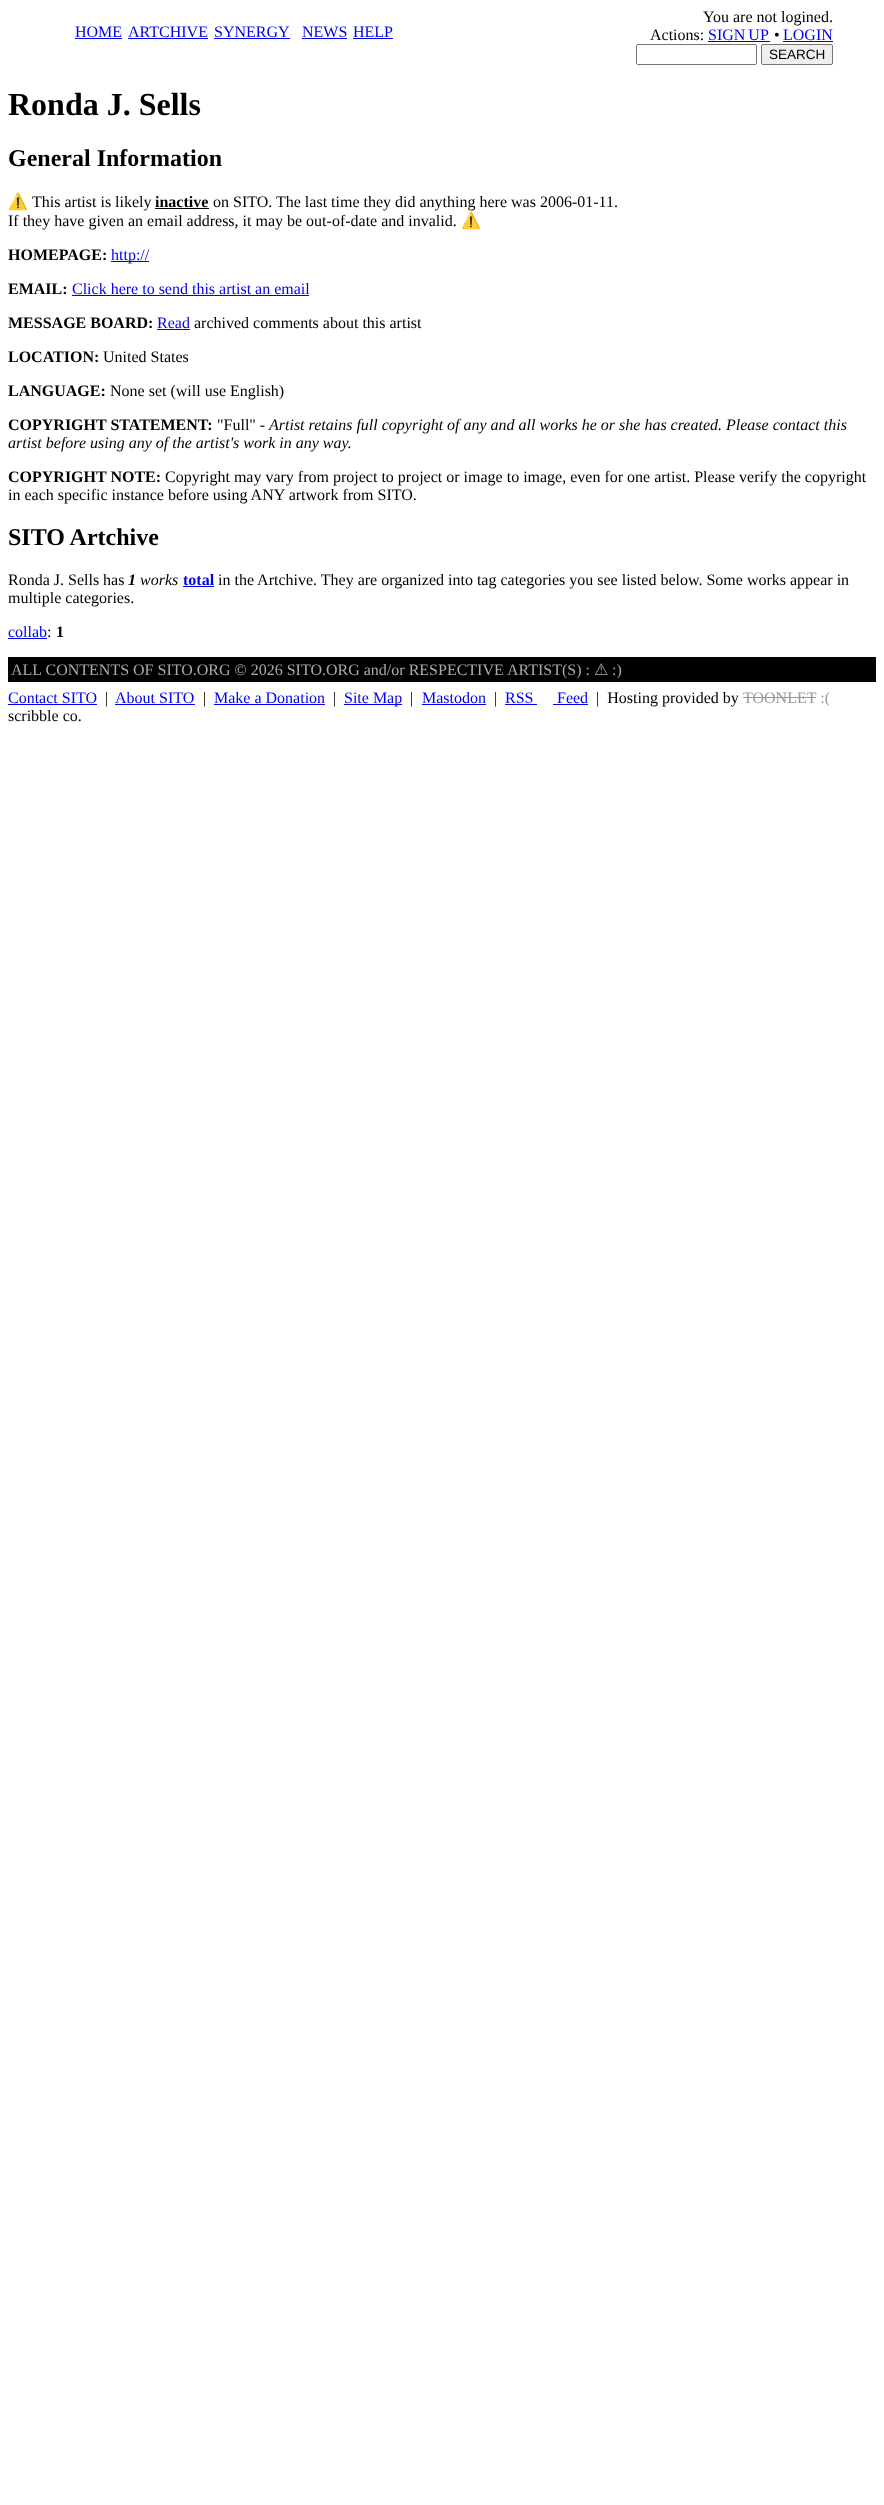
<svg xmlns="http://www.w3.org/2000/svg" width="884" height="2505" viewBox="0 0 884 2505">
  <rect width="100%" height="100%" fill="#ffffff"/>
  <text x="75" y="37" font-family="Liberation Serif" font-size="16" fill="#0000ee">HOME</text>
  <rect x="75" y="38" width="47" height="1" fill="#0000ee"/>
  <text x="128" y="37" font-family="Liberation Serif" font-size="16" fill="#0000ee">ARTCHIVE</text>
  <rect x="128" y="38" width="80" height="1" fill="#0000ee"/>
  <text x="214" y="37" font-family="Liberation Serif" font-size="16" fill="#0000ee">SYNERGY</text>
  <rect x="214" y="38" width="76" height="1" fill="#0000ee"/>
  <text x="302" y="37" font-family="Liberation Serif" font-size="16" fill="#0000ee">NEWS</text>
  <rect x="302" y="38" width="45" height="1" fill="#0000ee"/>
  <text x="353" y="37" font-family="Liberation Serif" font-size="16" fill="#0000ee">HELP</text>
  <rect x="353" y="38" width="40" height="1" fill="#0000ee"/>
  <text x="703" y="22" font-family="Liberation Serif" font-size="16" fill="#000000">You are not logined.</text>
  <text x="650" y="40" font-family="Liberation Serif" font-size="16" fill="#000000">Actions:</text>
  <text x="708" y="40" word-spacing="-1" font-family="Liberation Serif" font-size="16" fill="#0000ee">SIGN UP</text>
  <rect x="708" y="41" width="62" height="1" fill="#0000ee"/>
  <text x="774" y="40" font-family="Liberation Serif" font-size="16" fill="#000000">•</text>
  <text x="783" y="40" font-family="Liberation Serif" font-size="16" fill="#0000ee">LOGIN</text>
  <rect x="783" y="41" width="50" height="1" fill="#0000ee"/>
  <rect x="636.5" y="44.5" width="120" height="20" rx="1.5" fill="none" stroke="#767676"/>
  <rect x="761.5" y="44.5" width="71" height="20" rx="1.5" fill="#efefef" stroke="#767676"/>
  <text x="769" y="59" font-family="Liberation Sans" font-size="13.5" fill="#000000">SEARCH</text>
  <text x="8" y="115" font-family="Liberation Serif" font-size="32" font-weight="bold" fill="#000000">Ronda J. Sells</text>
  <text x="8" y="166" font-family="Liberation Serif" font-size="24" font-weight="bold" fill="#000000">General Information</text>
  <text x="8" y="207" font-family="Noto Color Emoji" font-size="16" fill="#000000">⚠️</text>
  <text x="32" y="207" font-family="Liberation Serif" font-size="16" fill="#000000">This artist is likely</text>
  <text x="155" y="207" font-family="Liberation Serif" font-size="16" font-weight="bold" fill="#000000">inactive</text>
  <rect x="155" y="208" width="54" height="1" fill="#000000"/>
  <text x="213" y="207" font-family="Liberation Serif" font-size="16" fill="#000000">on SITO. The last time they did anything here was 2006-01-11.</text>
  <text x="8" y="226" font-family="Liberation Serif" font-size="16" fill="#000000">If they have given an email address, it may be out-of-date and invalid.</text>
  <text x="461" y="226" font-family="Noto Color Emoji" font-size="16" fill="#000000">⚠️</text>
  <text x="8" y="260" font-family="Liberation Serif" font-size="16" font-weight="bold" fill="#000000">HOMEPAGE:</text>
  <rect x="111" y="261" width="38" height="1" fill="#0000ee"/>
  <text x="111" y="260" font-family="Liberation Serif" font-size="16" fill="#0000ee">http://</text>
  <text x="8" y="294" font-family="Liberation Serif" font-size="16" font-weight="bold" fill="#000000">EMAIL:</text>
  <text x="72" y="294" font-family="Liberation Serif" font-size="16" fill="#0000ee">Click here to send this artist an email</text>
  <rect x="72" y="295" width="237" height="1" fill="#0000ee"/>
  <text x="8" y="328" font-family="Liberation Serif" font-size="16" font-weight="bold" fill="#000000">MESSAGE BOARD:</text>
  <text x="157" y="328" font-family="Liberation Serif" font-size="16" fill="#0000ee">Read</text>
  <rect x="157" y="329" width="33" height="1" fill="#0000ee"/>
  <text x="194" y="328" font-family="Liberation Serif" font-size="16" fill="#000000">archived comments about this artist</text>
  <text x="8" y="362" font-family="Liberation Serif" font-size="16" font-weight="bold" fill="#000000">LOCATION:</text>
  <text x="103" y="362" font-family="Liberation Serif" font-size="16" fill="#000000">United States</text>
  <text x="8" y="396" font-family="Liberation Serif" font-size="16" font-weight="bold" fill="#000000">LANGUAGE:</text>
  <text x="110" y="396" font-family="Liberation Serif" font-size="16" fill="#000000">None set (will use English)</text>
  <text x="8" y="430" font-family="Liberation Serif" font-size="16" font-weight="bold" fill="#000000">COPYRIGHT STATEMENT:</text>
  <text x="217" y="430" font-family="Liberation Serif" font-size="16" fill="#000000">"Full" -</text>
  <text x="269" y="430" font-family="Liberation Serif" font-size="16" font-style="italic" fill="#000000">Artist retains full copyright of any and all works he or she has created. Please contact this</text>
  <text x="8" y="448" font-family="Liberation Serif" font-size="16" font-style="italic" fill="#000000">artist before using any of the artist's work in any way.</text>
  <text x="8" y="482" font-family="Liberation Serif" font-size="16" font-weight="bold" fill="#000000">COPYRIGHT NOTE:</text>
  <text x="165" y="482" font-family="Liberation Serif" font-size="16" fill="#000000">Copyright may vary from project to project or image to image, even for one artist. Please verify the copyright</text>
  <text x="8" y="500" font-family="Liberation Serif" font-size="16" fill="#000000">in each specific instance before using ANY artwork from SITO.</text>
  <text x="8" y="545" font-family="Liberation Serif" font-size="24" font-weight="bold" fill="#000000">SITO Artchive</text>
  <text x="8" y="585" font-family="Liberation Serif" font-size="16" fill="#000000">Ronda J. Sells has</text>
  <text x="128" y="585" font-family="Liberation Serif" font-size="16" font-weight="bold" font-style="italic" fill="#000000">1</text>
  <text x="140" y="585" font-family="Liberation Serif" font-size="16" font-style="italic" fill="#000000">works</text>
  <text x="183" y="585" font-family="Liberation Serif" font-size="16" font-weight="bold" fill="#0000ee">total</text>
  <rect x="183" y="586" width="31" height="1" fill="#0000ee"/>
  <text x="218" y="585" font-family="Liberation Serif" font-size="16" fill="#000000">in the Artchive. They are organized into tag categories you see listed below. Some works appear in</text>
  <text x="8" y="603" font-family="Liberation Serif" font-size="16" fill="#000000">multiple categories.</text>
  <text x="8" y="637" font-family="Liberation Serif" font-size="16" fill="#0000ee">collab</text>
  <text x="47" y="637" font-family="Liberation Serif" font-size="16" fill="#000000">:</text>
  <rect x="8" y="638" width="39" height="1" fill="#0000ee"/>
  <text x="56" y="637" font-family="Liberation Serif" font-size="16" font-weight="bold" fill="#000000">1</text>
  <rect x="8" y="657" width="868" height="25" fill="#000000"/>
  <text x="11" y="675" font-family="Liberation Serif" font-size="16" fill="#aaaaaa">ALL CONTENTS OF SITO.ORG © 2026 SITO.ORG and/or RESPECTIVE ARTIST(S) :</text>
  <text x="594" y="675" font-family="DejaVu Sans" font-size="16" fill="#aaaaaa">⚠</text>
  <text x="612" y="675" font-family="Liberation Serif" font-size="16" fill="#aaaaaa">:)</text>
  <text x="8" y="703" font-family="Liberation Serif" font-size="16" fill="#0000ee">Contact SITO</text>
  <rect x="8" y="704" width="89" height="1" fill="#0000ee"/>
  <text x="105" y="703" font-family="Liberation Serif" font-size="16" fill="#000000">|</text>
  <text x="115" y="703" font-family="Liberation Serif" font-size="16" fill="#0000ee">About SITO</text>
  <rect x="115" y="704" width="80" height="1" fill="#0000ee"/>
  <text x="203" y="703" font-family="Liberation Serif" font-size="16" fill="#000000">|</text>
  <text x="214" y="703" font-family="Liberation Serif" font-size="16" fill="#0000ee">Make a Donation</text>
  <rect x="214" y="704" width="111" height="1" fill="#0000ee"/>
  <text x="333" y="703" font-family="Liberation Serif" font-size="16" fill="#000000">|</text>
  <rect x="344" y="704" width="58" height="1" fill="#0000ee"/>
  <text x="344" y="703" font-family="Liberation Serif" font-size="16" fill="#0000ee">Site Map</text>
  <text x="410" y="703" font-family="Liberation Serif" font-size="16" fill="#000000">|</text>
  <text x="422" y="703" font-family="Liberation Serif" font-size="16" fill="#0000ee">Mastodon</text>
  <rect x="422" y="704" width="64" height="1" fill="#0000ee"/>
  <text x="494" y="703" font-family="Liberation Serif" font-size="16" fill="#000000">|</text>
  <text x="505" y="703" font-family="Liberation Serif" font-size="16" fill="#0000ee">RSS</text>
  <rect x="505" y="704" width="32" height="1" fill="#0000ee"/>
  <text x="557" y="703" font-family="Liberation Serif" font-size="16" fill="#0000ee">Feed</text>
  <rect x="553" y="704" width="35" height="1" fill="#0000ee"/>
  <text x="596" y="703" font-family="Liberation Serif" font-size="16" fill="#000000" xml:space="preserve">|  Hosting provided by</text>
  <text x="743" y="703" font-family="Liberation Serif" font-size="16" fill="#999999">TOONLET :(</text>
  <rect x="743" y="697" width="73" height="1" fill="#999999"/>
  <text x="8" y="721" font-family="Liberation Serif" font-size="16" fill="#000000">scribble co.</text>
</svg>
